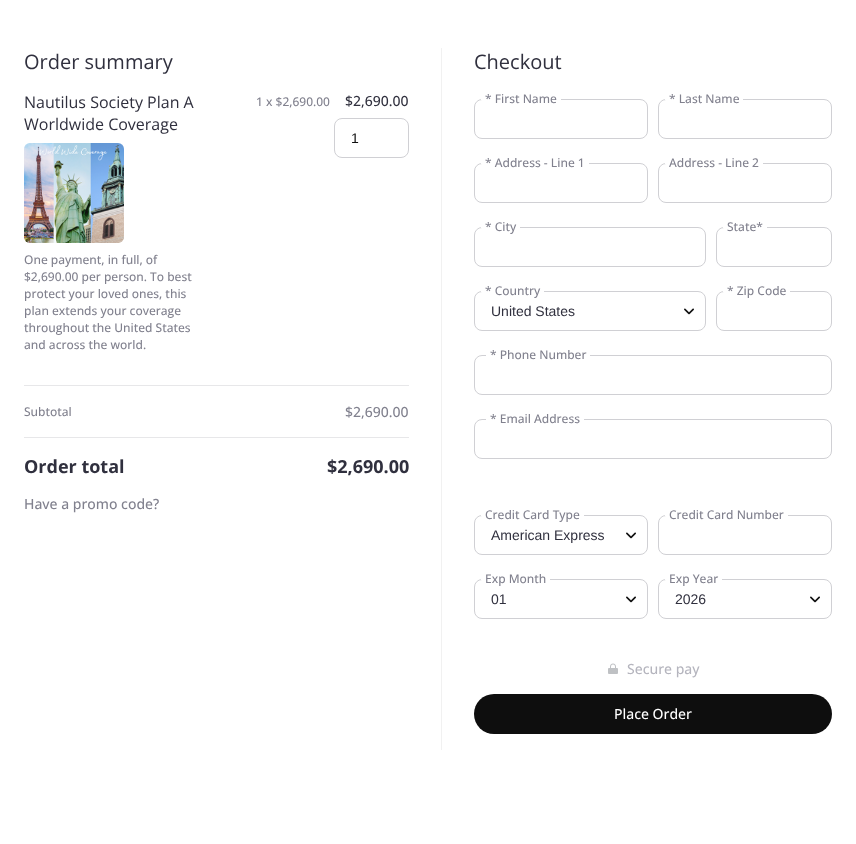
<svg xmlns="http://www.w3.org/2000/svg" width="856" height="844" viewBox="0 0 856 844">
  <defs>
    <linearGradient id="g1" gradientUnits="userSpaceOnUse" x1="521" y1="111" x2="521" y2="87"><stop offset="0" stop-color="#0e0e0e" stop-opacity="0"/><stop offset="0.42" stop-color="#ffffff" stop-opacity="0"/><stop offset="0.42" stop-color="#ffffff"/><stop offset="0.51" stop-color="#ffffff"/><stop offset="0.51" stop-color="#ffffff" stop-opacity="0"/></linearGradient>
    <linearGradient id="g2" gradientUnits="userSpaceOnUse" x1="704" y1="111" x2="704" y2="87"><stop offset="0" stop-color="#0e0e0e" stop-opacity="0"/><stop offset="0.42" stop-color="#ffffff" stop-opacity="0"/><stop offset="0.42" stop-color="#ffffff"/><stop offset="0.51" stop-color="#ffffff"/><stop offset="0.51" stop-color="#ffffff" stop-opacity="0"/></linearGradient>
    <linearGradient id="g3" gradientUnits="userSpaceOnUse" x1="535" y1="175" x2="535" y2="151"><stop offset="0" stop-color="#0e0e0e" stop-opacity="0"/><stop offset="0.42" stop-color="#ffffff" stop-opacity="0"/><stop offset="0.42" stop-color="#ffffff"/><stop offset="0.51" stop-color="#ffffff"/><stop offset="0.51" stop-color="#ffffff" stop-opacity="0"/></linearGradient>
    <linearGradient id="g4" gradientUnits="userSpaceOnUse" x1="714" y1="175" x2="714" y2="151"><stop offset="0" stop-color="#0e0e0e" stop-opacity="0"/><stop offset="0.42" stop-color="#ffffff" stop-opacity="0"/><stop offset="0.42" stop-color="#ffffff"/><stop offset="0.51" stop-color="#ffffff"/><stop offset="0.51" stop-color="#ffffff" stop-opacity="0"/></linearGradient>
    <linearGradient id="g5" gradientUnits="userSpaceOnUse" x1="501" y1="239" x2="501" y2="215"><stop offset="0" stop-color="#0e0e0e" stop-opacity="0"/><stop offset="0.42" stop-color="#ffffff" stop-opacity="0"/><stop offset="0.42" stop-color="#ffffff"/><stop offset="0.51" stop-color="#ffffff"/><stop offset="0.51" stop-color="#ffffff" stop-opacity="0"/></linearGradient>
    <linearGradient id="g6" gradientUnits="userSpaceOnUse" x1="745" y1="239" x2="745" y2="215"><stop offset="0" stop-color="#0e0e0e" stop-opacity="0"/><stop offset="0.42" stop-color="#ffffff" stop-opacity="0"/><stop offset="0.42" stop-color="#ffffff"/><stop offset="0.51" stop-color="#ffffff"/><stop offset="0.51" stop-color="#ffffff" stop-opacity="0"/></linearGradient>
    <linearGradient id="g7" gradientUnits="userSpaceOnUse" x1="513" y1="303" x2="513" y2="279"><stop offset="0" stop-color="#0e0e0e" stop-opacity="0"/><stop offset="0.42" stop-color="#ffffff" stop-opacity="0"/><stop offset="0.42" stop-color="#ffffff"/><stop offset="0.51" stop-color="#ffffff"/><stop offset="0.51" stop-color="#ffffff" stop-opacity="0"/></linearGradient>
    <linearGradient id="g8" gradientUnits="userSpaceOnUse" x1="757" y1="303" x2="757" y2="279"><stop offset="0" stop-color="#0e0e0e" stop-opacity="0"/><stop offset="0.42" stop-color="#ffffff" stop-opacity="0"/><stop offset="0.42" stop-color="#ffffff"/><stop offset="0.51" stop-color="#ffffff"/><stop offset="0.51" stop-color="#ffffff" stop-opacity="0"/></linearGradient>
    <linearGradient id="g9" gradientUnits="userSpaceOnUse" x1="538" y1="367" x2="538" y2="343"><stop offset="0" stop-color="#0e0e0e" stop-opacity="0"/><stop offset="0.42" stop-color="#ffffff" stop-opacity="0"/><stop offset="0.42" stop-color="#ffffff"/><stop offset="0.51" stop-color="#ffffff"/><stop offset="0.51" stop-color="#ffffff" stop-opacity="0"/></linearGradient>
    <linearGradient id="g10" gradientUnits="userSpaceOnUse" x1="535" y1="431" x2="535" y2="407"><stop offset="0" stop-color="#0e0e0e" stop-opacity="0"/><stop offset="0.42" stop-color="#ffffff" stop-opacity="0"/><stop offset="0.42" stop-color="#ffffff"/><stop offset="0.51" stop-color="#ffffff"/><stop offset="0.51" stop-color="#ffffff" stop-opacity="0"/></linearGradient>
    <linearGradient id="g11" gradientUnits="userSpaceOnUse" x1="533" y1="527" x2="533" y2="503"><stop offset="0" stop-color="#0e0e0e" stop-opacity="0"/><stop offset="0.42" stop-color="#ffffff" stop-opacity="0"/><stop offset="0.42" stop-color="#ffffff"/><stop offset="0.51" stop-color="#ffffff"/><stop offset="0.51" stop-color="#ffffff" stop-opacity="0"/></linearGradient>
    <linearGradient id="g12" gradientUnits="userSpaceOnUse" x1="727" y1="527" x2="727" y2="503"><stop offset="0" stop-color="#0e0e0e" stop-opacity="0"/><stop offset="0.42" stop-color="#ffffff" stop-opacity="0"/><stop offset="0.42" stop-color="#ffffff"/><stop offset="0.51" stop-color="#ffffff"/><stop offset="0.51" stop-color="#ffffff" stop-opacity="0"/></linearGradient>
    <linearGradient id="g13" gradientUnits="userSpaceOnUse" x1="516" y1="591" x2="516" y2="567"><stop offset="0" stop-color="#0e0e0e" stop-opacity="0"/><stop offset="0.42" stop-color="#ffffff" stop-opacity="0"/><stop offset="0.42" stop-color="#ffffff"/><stop offset="0.51" stop-color="#ffffff"/><stop offset="0.51" stop-color="#ffffff" stop-opacity="0"/></linearGradient>
    <linearGradient id="g14" gradientUnits="userSpaceOnUse" x1="694" y1="591" x2="694" y2="567"><stop offset="0" stop-color="#0e0e0e" stop-opacity="0"/><stop offset="0.42" stop-color="#ffffff" stop-opacity="0"/><stop offset="0.42" stop-color="#ffffff"/><stop offset="0.51" stop-color="#ffffff"/><stop offset="0.51" stop-color="#ffffff" stop-opacity="0"/></linearGradient>
  </defs>
  <rect width="100%" height="100%" fill="#ffffff"/>
  <rect x="441" y="48" width="1" height="702" fill="#f1f1f1"/>
  <rect x="24" y="385" width="385" height="1" fill="#e7e7e9"/>
  <text x="24" y="69" font-family="Open Sans" font-size="20" fill="#30303e">Order summary</text>
  <text x="24" y="108" font-family="Open Sans" font-size="16" fill="#30303e">Nautilus Society Plan A</text>
  <text x="24" y="130" font-family="Open Sans" font-size="16" fill="#30303e">Worldwide Coverage</text>
  <image x="24" y="143" width="100" height="100" href="img1.png"/>
  <text x="24" y="264" font-family="Open Sans" font-size="12" font-weight="500" fill="#81818e">One payment, in full, of</text>
  <text x="24" y="281" font-family="Open Sans" font-size="12" font-weight="500" fill="#81818e">$2,690.00 per person. To best</text>
  <text x="24" y="298" font-family="Open Sans" font-size="12" font-weight="500" fill="#81818e">protect your loved ones, this</text>
  <text x="24" y="315" font-family="Open Sans" font-size="12" font-weight="500" fill="#81818e">plan extends your coverage</text>
  <text x="24" y="332" font-family="Open Sans" font-size="12" font-weight="500" fill="#81818e">throughout the United States</text>
  <text x="24" y="349" font-family="Open Sans" font-size="12" font-weight="500" fill="#81818e">and across the world.</text>
  <text x="256" y="106" font-family="Open Sans" font-size="12" font-weight="500" fill="#81818e">1 x $2,690.00</text>
  <text x="345" y="106" font-family="Open Sans" font-size="14" font-weight="500" fill="#30303e">$2,690.00</text>
  <rect x="334.5" y="118.5" width="74" height="39" rx="7.5" fill="none" stroke="#d0d0d4"/>
  <text x="351" y="143" font-family="Liberation Sans" font-size="14" fill="#0e0e0e">1</text>
  <rect x="24" y="437" width="385" height="1" fill="#e7e7e9"/>
  <text x="24" y="416" font-family="Open Sans" font-size="12" font-weight="500" fill="#81818e">Subtotal</text>
  <text x="345" y="417" font-family="Open Sans" font-size="14" font-weight="500" fill="#81818e">$2,690.00</text>
  <text x="24" y="473" font-family="Open Sans" font-size="18" font-weight="bold" fill="#30303e">Order total</text>
  <text x="327" y="473" font-family="Open Sans" font-size="18" font-weight="bold" fill="#30303e">$2,690.00</text>
  <text x="24" y="509" font-family="Open Sans" font-size="14" font-weight="500" fill="#81818e">Have a promo code?</text>
  <text x="474" y="69" font-family="Open Sans" font-size="20" fill="#30303e">Checkout</text>
  <rect x="474.5" y="99.5" width="173" height="39" rx="7.5" fill="none" stroke="#d0d0d4"/>
  <rect x="481" y="99" width="80" height="1" fill="url(#g1)"/>
  <text x="485" y="103" font-family="Open Sans" font-size="12" font-weight="500" fill="#81818e">* First Name</text>
  <rect x="658.5" y="99.5" width="173" height="39" rx="7.5" fill="none" stroke="#d0d0d4"/>
  <rect x="665" y="99" width="78" height="1" fill="url(#g2)"/>
  <text x="669" y="103" font-family="Open Sans" font-size="12" font-weight="500" fill="#81818e">* Last Name</text>
  <rect x="474.5" y="163.5" width="173" height="39" rx="7.5" fill="none" stroke="#d0d0d4"/>
  <rect x="481" y="163" width="108" height="1" fill="url(#g3)"/>
  <text x="485" y="167" font-family="Open Sans" font-size="12" font-weight="500" fill="#81818e">* Address - Line 1</text>
  <rect x="658.5" y="163.5" width="173" height="39" rx="7.5" fill="none" stroke="#d0d0d4"/>
  <rect x="665" y="163" width="98" height="1" fill="url(#g4)"/>
  <text x="669" y="167" font-family="Open Sans" font-size="12" font-weight="500" fill="#81818e">Address - Line 2</text>
  <rect x="474.5" y="227.5" width="231" height="39" rx="7.5" fill="none" stroke="#d0d0d4"/>
  <rect x="481" y="227" width="39" height="1" fill="url(#g5)"/>
  <text x="485" y="231" font-family="Open Sans" font-size="12" font-weight="500" fill="#81818e">* City</text>
  <rect x="716.5" y="227.5" width="115" height="39" rx="7.5" fill="none" stroke="#d0d0d4"/>
  <rect x="723" y="227" width="44" height="1" fill="url(#g6)"/>
  <text x="727" y="231" font-family="Open Sans" font-size="12" font-weight="500" fill="#81818e">State*</text>
  <image x="684" y="308" width="10" height="7" href="img2.png"/>
  <rect x="474.5" y="291.5" width="231" height="39" rx="7.5" fill="none" stroke="#d0d0d4"/>
  <rect x="481" y="291" width="63" height="1" fill="url(#g7)"/>
  <text x="485" y="295" font-family="Open Sans" font-size="12" font-weight="500" fill="#81818e">* Country</text>
  <text x="491" y="316" font-family="Liberation Sans" font-size="14" fill="#30303e">United States</text>
  <rect x="716.5" y="291.5" width="115" height="39" rx="7.5" fill="none" stroke="#d0d0d4"/>
  <rect x="723" y="291" width="67" height="1" fill="url(#g8)"/>
  <text x="727" y="295" font-family="Open Sans" font-size="12" font-weight="500" fill="#81818e">* Zip Code</text>
  <rect x="474.5" y="355.5" width="357" height="39" rx="7.5" fill="none" stroke="#d0d0d4"/>
  <rect x="486" y="355" width="104" height="1" fill="url(#g9)"/>
  <text x="490" y="359" font-family="Open Sans" font-size="12" font-weight="500" fill="#81818e">* Phone Number</text>
  <rect x="474.5" y="419.5" width="357" height="39" rx="7.5" fill="none" stroke="#d0d0d4"/>
  <rect x="486" y="419" width="98" height="1" fill="url(#g10)"/>
  <text x="490" y="423" font-family="Open Sans" font-size="12" font-weight="500" fill="#81818e">* Email Address</text>
  <image x="626" y="532" width="10" height="7" href="img2.png"/>
  <rect x="474.5" y="515.5" width="173" height="39" rx="7.5" fill="none" stroke="#d0d0d4"/>
  <rect x="481" y="515" width="103" height="1" fill="url(#g11)"/>
  <text x="485" y="519" font-family="Open Sans" font-size="12" font-weight="500" fill="#81818e">Credit Card Type</text>
  <text x="491" y="540" font-family="Liberation Sans" font-size="14" fill="#30303e">American Express</text>
  <rect x="658.5" y="515.5" width="173" height="39" rx="7.5" fill="none" stroke="#d0d0d4"/>
  <rect x="665" y="515" width="123" height="1" fill="url(#g12)"/>
  <text x="669" y="519" font-family="Open Sans" font-size="12" font-weight="500" fill="#81818e">Credit Card Number</text>
  <image x="626" y="596" width="10" height="7" href="img2.png"/>
  <rect x="474.5" y="579.5" width="173" height="39" rx="7.5" fill="none" stroke="#d0d0d4"/>
  <rect x="481" y="579" width="69" height="1" fill="url(#g13)"/>
  <text x="485" y="583" font-family="Open Sans" font-size="12" font-weight="500" fill="#81818e">Exp Month</text>
  <text x="491" y="604" font-family="Liberation Sans" font-size="14" fill="#30303e">01</text>
  <image x="810" y="596" width="10" height="7" href="img2.png"/>
  <rect x="658.5" y="579.5" width="173" height="39" rx="7.5" fill="none" stroke="#d0d0d4"/>
  <rect x="665" y="579" width="57" height="1" fill="url(#g14)"/>
  <text x="669" y="583" font-family="Open Sans" font-size="12" font-weight="500" fill="#81818e">Exp Year</text>
  <text x="675" y="604" font-family="Liberation Sans" font-size="14" fill="#30303e">2026</text>
  <image x="608" y="663" width="10" height="11" href="img3.png"/>
  <text x="627" y="674" font-family="Open Sans" font-size="14" font-weight="500" fill="#b5b5be">Secure pay</text>
  <rect x="474" y="694" width="358" height="40" rx="20" fill="#0e0e0e"/>
  <text x="614" y="719" font-family="Open Sans" font-size="14" font-weight="500" fill="#ffffff">Place Order</text>
</svg>
